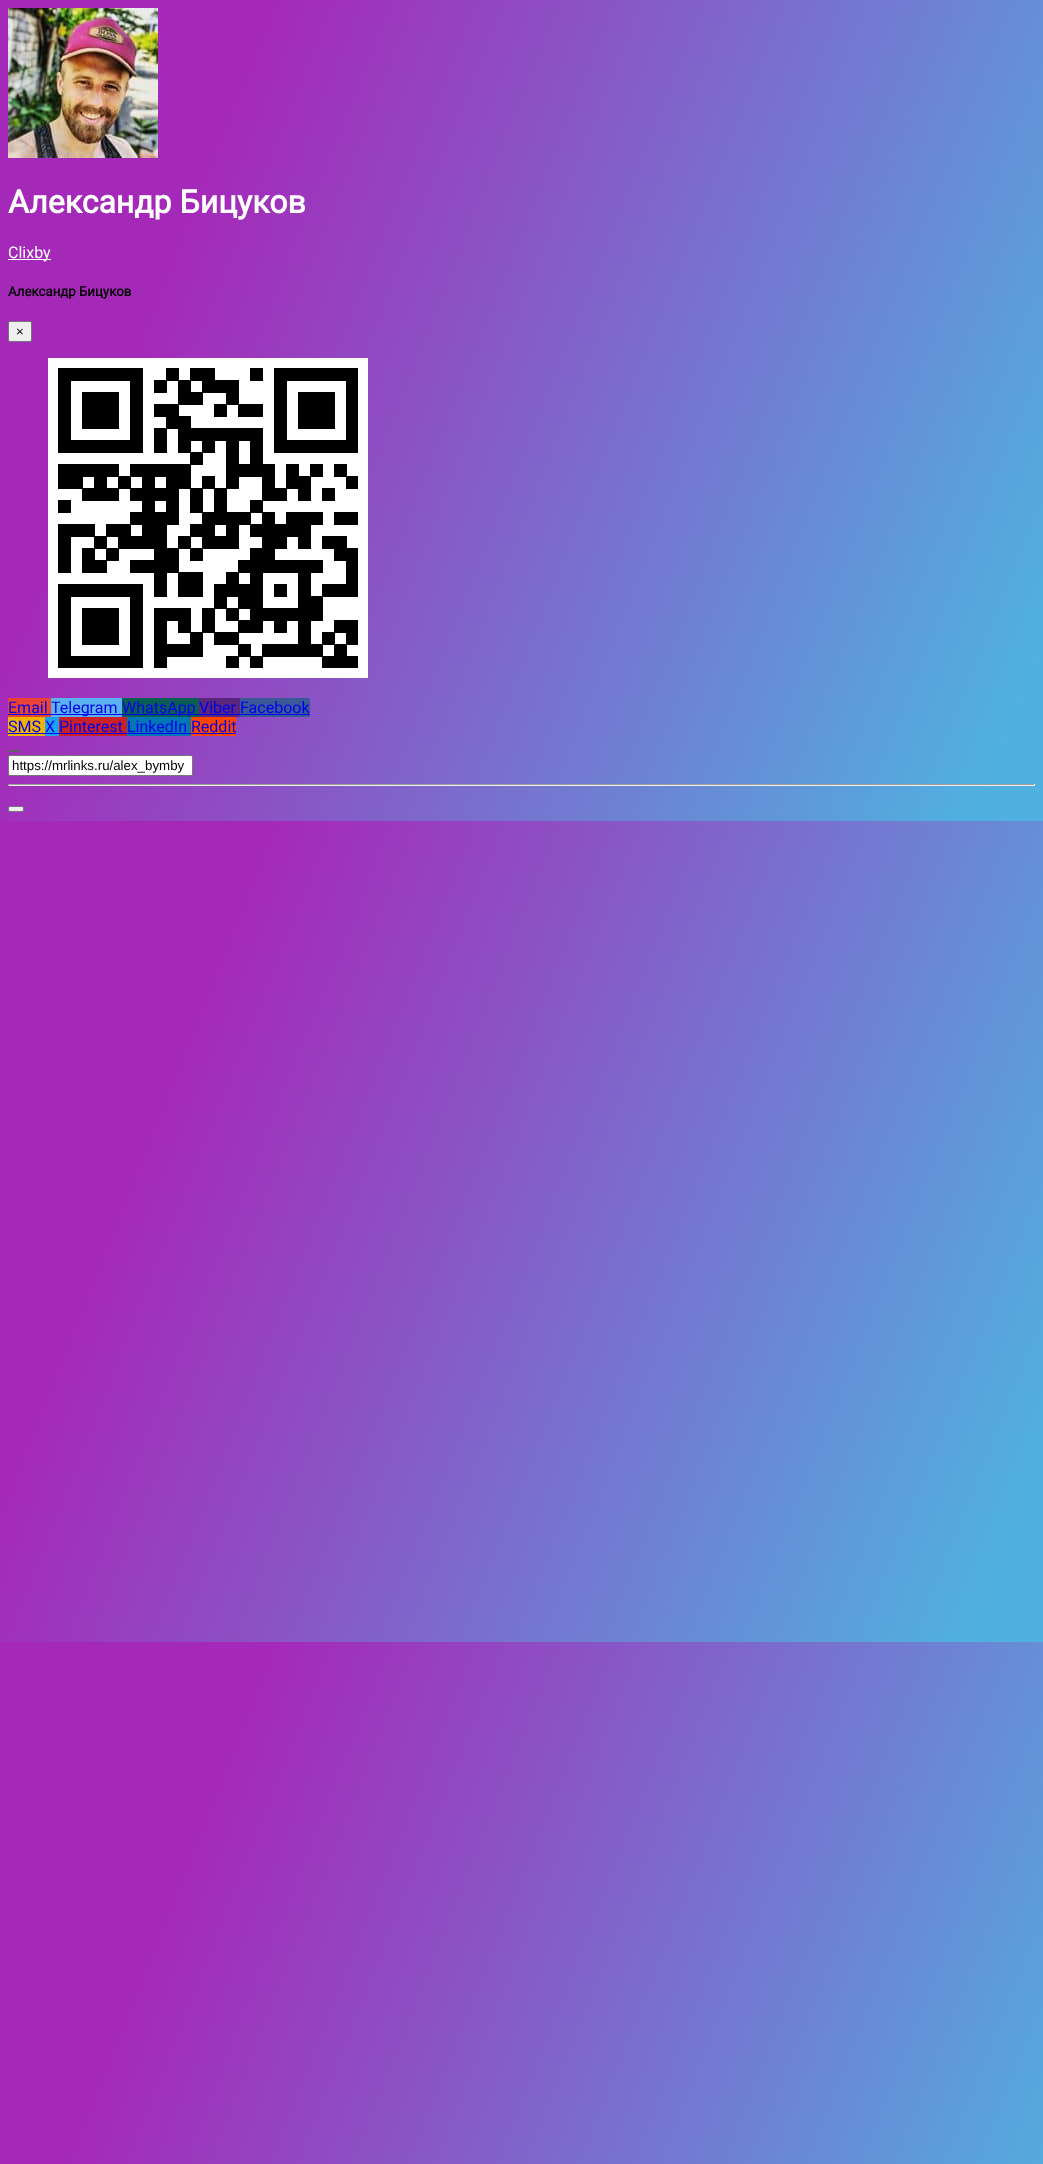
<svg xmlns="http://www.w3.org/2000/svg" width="1043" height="2164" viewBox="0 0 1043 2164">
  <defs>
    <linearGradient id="g1" gradientUnits="userSpaceOnUse" x1="-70" y1="175" x2="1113" y2="646"><stop offset="0.2" stop-color="#a529b9"/><stop offset="0.95" stop-color="#50b1e1"/></linearGradient>
    <linearGradient id="g2" gradientUnits="userSpaceOnUse" x1="-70" y1="996" x2="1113" y2="1467"><stop offset="0.2" stop-color="#a529b9"/><stop offset="0.95" stop-color="#50b1e1"/></linearGradient>
    <linearGradient id="g3" gradientUnits="userSpaceOnUse" x1="-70" y1="1817" x2="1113" y2="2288"><stop offset="0.2" stop-color="#a529b9"/><stop offset="0.95" stop-color="#50b1e1"/></linearGradient>
  </defs>
  <rect width="100%" height="100%" fill="#ffffff"/>
  <rect x="0" y="0" width="1043" height="821" fill="url(#g1)"/>
  <rect x="0" y="821" width="1043" height="821" fill="url(#g2)"/>
  <rect x="0" y="1642" width="1043" height="522" fill="url(#g3)"/>
  <image x="8" y="8" width="150" height="150" href="img1.png"/>
  <text x="8" y="213" font-family="Roboto" font-size="32" font-weight="bold" fill="#ffffff">Александр Бицуков</text>
  <rect x="8" y="259" width="43" height="1" fill="#ffffff"/>
  <text x="8" y="258" font-family="Roboto" font-size="16" fill="#ffffff">Clixby</text>
  <text x="8" y="296" font-family="Roboto" font-size="13.25" font-weight="bold" fill="#000000">Александр Бицуков</text>
  <rect x="8.5" y="321.5" width="23" height="20" rx="1.5" fill="#efefef" stroke="#767676"/>
  <text x="16" y="336" font-family="Liberation Sans" font-size="13.3" fill="#000000">×</text>
  <image x="48" y="358" width="320" height="320" href="img2.png"/>
  <rect x="8" y="698" width="43" height="19" fill="#e94335"/>
  <text x="8" y="713" font-family="Roboto" font-size="16" fill="#0000ee">Email</text>
  <rect x="8" y="714" width="43" height="1" fill="#0000ee"/>
  <rect x="51" y="698" width="71" height="19" fill="#5ab3f0"/>
  <rect x="51" y="714" width="71" height="1" fill="#0000ee"/>
  <text x="51" y="713" font-family="Roboto" font-size="16" fill="#0000ee">Telegram</text>
  <rect x="122" y="698" width="77" height="19" fill="#075e54"/>
  <rect x="122" y="714" width="77" height="1" fill="#0000ee"/>
  <text x="122" y="713" font-family="Roboto" font-size="16" fill="#0000ee">WhatsApp</text>
  <rect x="199" y="698" width="41" height="19" fill="#59267c"/>
  <text x="199" y="713" font-family="Roboto" font-size="16" fill="#0000ee">Viber</text>
  <rect x="199" y="714" width="41" height="1" fill="#0000ee"/>
  <rect x="240" y="698" width="70" height="19" fill="#3b5998"/>
  <text x="240" y="713" font-family="Roboto" font-size="16" fill="#0000ee">Facebook</text>
  <rect x="240" y="714" width="70" height="1" fill="#0000ee"/>
  <rect x="8" y="717" width="37" height="19" fill="#f1b200"/>
  <text x="8" y="732" font-family="Roboto" font-size="16" fill="#0000ee">SMS</text>
  <rect x="8" y="733" width="37" height="1" fill="#0000ee"/>
  <rect x="45" y="717" width="14" height="19" fill="#1da1f2"/>
  <text x="45" y="732" font-family="Roboto" font-size="16" fill="#0000ee">X</text>
  <rect x="45" y="733" width="14" height="1" fill="#0000ee"/>
  <rect x="59" y="717" width="68" height="19" fill="#cb2027"/>
  <text x="59" y="732" font-family="Roboto" font-size="16" fill="#0000ee">Pinterest</text>
  <rect x="59" y="733" width="68" height="1" fill="#0000ee"/>
  <rect x="127" y="717" width="64" height="19" fill="#0077b5"/>
  <text x="127" y="732" font-family="Roboto" font-size="16" fill="#0000ee">LinkedIn</text>
  <rect x="127" y="733" width="64" height="1" fill="#0000ee"/>
  <rect x="191" y="717" width="45" height="19" fill="#ff4500"/>
  <text x="191" y="732" font-family="Roboto" font-size="16" fill="#0000ee">Reddit</text>
  <rect x="191" y="733" width="45" height="1" fill="#0000ee"/>
  <rect x="8" y="750" width="12" height="2" fill="#606060"/>
  <rect x="8.5" y="755.5" width="184" height="20" rx="1.5" fill="#ffffff" stroke="#767676"/>
  <text x="12" y="770" font-family="Liberation Sans" font-size="13.3" fill="#000000">https://mrlinks.ru/alex_bymby</text>
  <rect x="8" y="784" width="1027" height="1" fill="#9f9f9f"/>
  <rect x="1034" y="784" width="1" height="2" fill="#eeeeee"/>
  <rect x="8" y="785" width="1027" height="1" fill="#eeeeee"/>
  <rect x="8" y="784" width="1" height="2" fill="#9f9f9f"/>
  <rect x="8.5" y="806.5" width="15" height="5" rx="1.5" fill="#efefef" stroke="#767676"/>
</svg>
